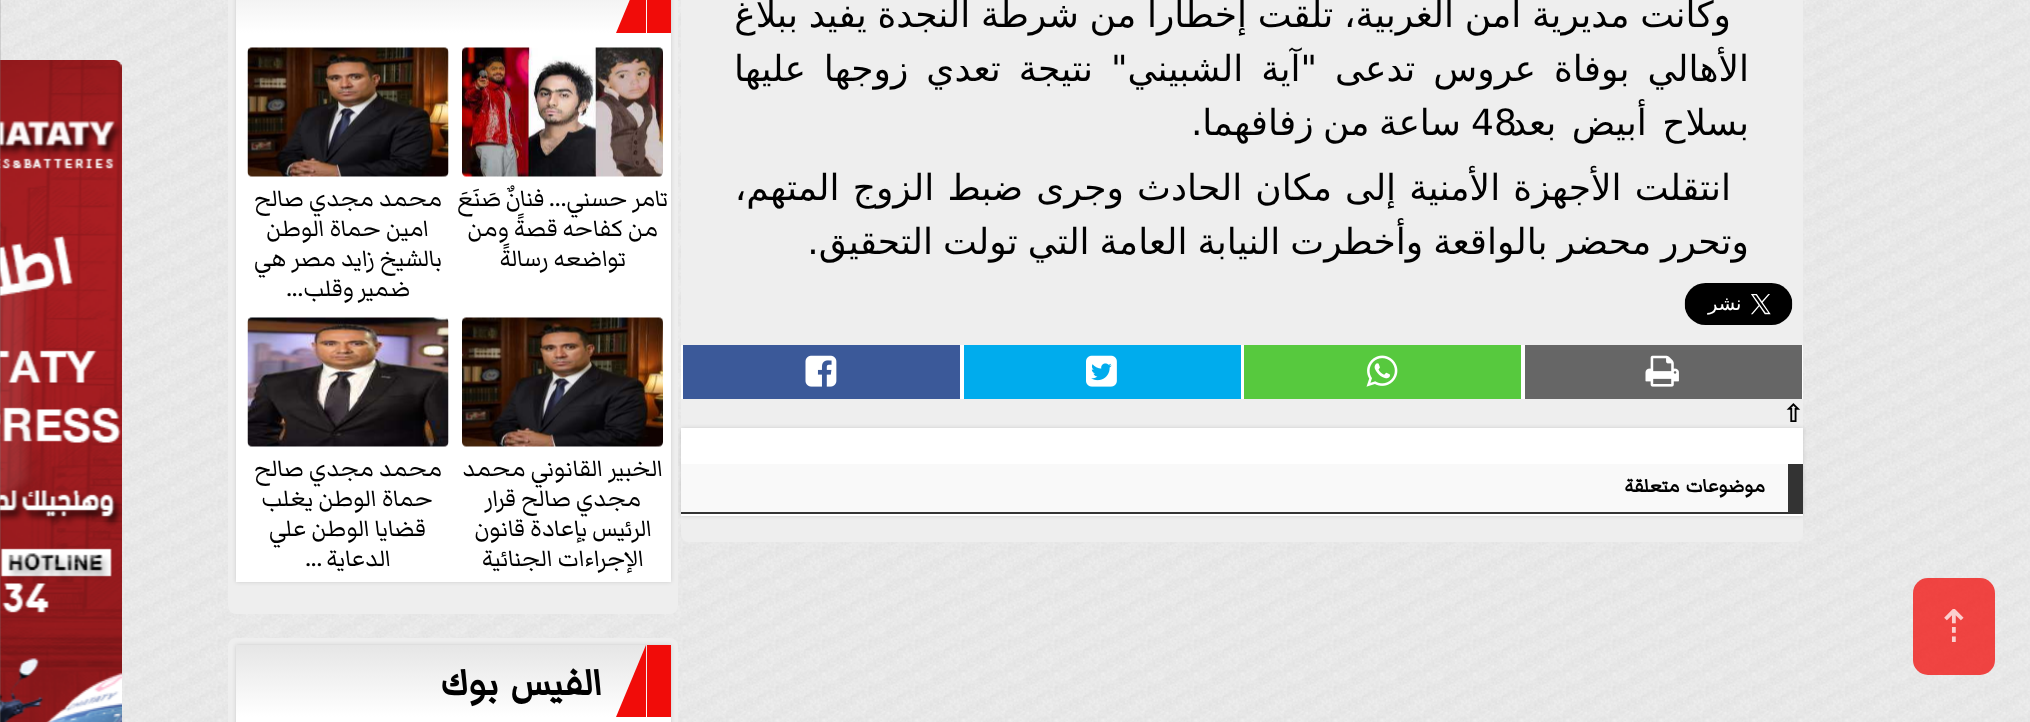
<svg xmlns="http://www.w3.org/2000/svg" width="2030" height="722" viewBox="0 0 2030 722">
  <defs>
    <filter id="blur1" x="-50%" y="-200%" width="200%" height="500%"><feGaussianBlur stdDeviation="2"/></filter>
    <linearGradient id="g1" gradientUnits="userSpaceOnUse" x1="453" y1="-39" x2="453" y2="33"><stop offset="0" stop-color="#e6e6e6"/><stop offset="1" stop-color="#ffffff"/></linearGradient>
    <linearGradient id="g2" gradientUnits="userSpaceOnUse" x1="453" y1="645" x2="453" y2="717"><stop offset="0" stop-color="#e6e6e6"/><stop offset="1" stop-color="#ffffff"/></linearGradient>
  </defs>
  <rect width="100%" height="100%" fill="#ffffff"/>
  <image x="0" y="0" width="2030" height="722" href="img1.png"/>
  <rect x="681" y="-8" width="1122" height="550" rx="8" fill="#eeeeee"/>
  <text x="1731" y="27" word-spacing="-0.75" font-family="DejaVu Sans" font-size="36" direction="rtl" fill="#000000">وكانت مديرية أمن الغربية، تلقت إخطارا من شرطة النجدة يفيد ببلاغ</text>
  <text x="1749" y="81" word-spacing="6.5" font-family="DejaVu Sans" font-size="36" direction="rtl" fill="#000000">الأهالي بوفاة عروس تدعى "آية الشبيني" نتيجة تعدي زوجها عليها</text>
  <text x="1471" y="135" font-family="DejaVu Sans" font-size="36" fill="#000000">48</text>
  <text x="1749" y="135" word-spacing="4" font-family="DejaVu Sans" font-size="36" direction="rtl" fill="#000000">بسلاح أبيض بعد</text>
  <text x="1461" y="135" word-spacing="-2" font-family="DejaVu Sans" font-size="36" direction="rtl" fill="#000000">ساعة من زفافهما.</text>
  <text x="1731" y="200" word-spacing="1.75" font-family="DejaVu Sans" font-size="36" direction="rtl" fill="#000000">انتقلت الأجهزة الأمنية إلى مكان الحادث وجرى ضبط الزوج المتهم،</text>
  <text x="1749" y="254" word-spacing="-1.5" font-family="DejaVu Sans" font-size="36" direction="rtl" fill="#000000">وتحرر محضر بالواقعة وأخطرت النيابة العامة التي تولت التحقيق.</text>
  <image x="1684" y="283" width="109" height="42" href="img2.png"/>
  <rect x="1525" y="345" width="277" height="54" fill="#666666"/>
  <rect x="1802" y="345" width="1" height="54" fill="#ffffff"/>
  <image x="1645" y="355" width="34" height="32" href="img3.png"/>
  <rect x="1244" y="345" width="277" height="54" fill="#57c93e"/>
  <rect x="1521" y="345" width="4" height="54" fill="#ffffff"/>
  <image x="1366" y="355" width="32" height="32" href="img4.png"/>
  <rect x="964" y="345" width="277" height="54" fill="#00aced"/>
  <rect x="1241" y="345" width="3" height="54" fill="#ffffff"/>
  <image x="1086" y="355" width="31" height="32" href="img5.png"/>
  <rect x="683" y="345" width="277" height="54" fill="#3b5999"/>
  <rect x="960" y="345" width="4" height="54" fill="#ffffff"/>
  <rect x="681" y="345" width="2" height="54" fill="#ffffff"/>
  <image x="805" y="355" width="32" height="32" href="img6.png"/>
  <text x="1783" y="422" font-family="DejaVu Sans" font-size="24" font-weight="bold" fill="#000000">⇧</text>
  <rect x="681" y="428" width="1122" height="88" fill="#000000" fill-opacity="0.15" filter="url(#blur1)"/>
  <rect x="681" y="428" width="1122" height="88" fill="#ffffff"/>
  <rect x="681" y="464" width="1107" height="48" fill="#f9f9f9"/>
  <rect x="1788" y="464" width="15" height="48" fill="#333333"/>
  <rect x="681" y="512" width="1122" height="2" fill="#333333"/>
  <text x="1765" y="492" font-family="Markazi Text" font-size="24" font-weight="bold" direction="rtl" fill="#000000">موضوعات متعلقة</text>
  <rect x="228" y="-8" width="450" height="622" rx="8" fill="#eeeeee"/>
  <rect x="236" y="-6" width="435" height="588" fill="#000000" fill-opacity="0.15" filter="url(#blur1)"/>
  <rect x="236" y="33" width="435" height="549" fill="#ffffff"/>
  <rect x="236" y="0" width="411" height="33" fill="url(#g1)"/>
  <rect x="647" y="0" width="24" height="33" fill="#f10c09"/>
  <path d="M646-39V33H616Z" fill="#f10c09"/>
  <image x="462" y="47" width="201" height="130" href="img7.png"/>
  <text x="668" y="206" word-spacing="-0.5" font-family="Markazi Text" font-size="30" direction="rtl" fill="#000000">تامر حسني… فنانٌ صَنَعَ</text>
  <text x="658" y="236" font-family="Markazi Text" font-size="30" direction="rtl" fill="#000000">من كفاحه قصةً ومن</text>
  <text x="626" y="266" font-family="Markazi Text" font-size="30" direction="rtl" fill="#000000">تواضعه رسالةً</text>
  <image x="247" y="47" width="202" height="130" href="img8.png"/>
  <text x="442" y="206" font-family="Markazi Text" font-size="30" direction="rtl" fill="#000000">محمد مجدي صالح</text>
  <text x="429" y="236" font-family="Markazi Text" font-size="30" direction="rtl" fill="#000000">امين حماة الوطن</text>
  <text x="442" y="266" font-family="Markazi Text" font-size="30" direction="rtl" fill="#000000">بالشيخ زايد مصر هي</text>
  <text x="410" y="296" word-spacing="-1" font-family="Markazi Text" font-size="30" direction="rtl" fill="#000000">ضمير وقلب...</text>
  <image x="462" y="317" width="201" height="130" href="img9.png"/>
  <text x="663" y="476" font-family="Markazi Text" font-size="30" direction="rtl" fill="#000000">الخبير القانوني محمد</text>
  <text x="641" y="506" font-family="Markazi Text" font-size="30" direction="rtl" fill="#000000">مجدي صالح قرار</text>
  <text x="652" y="536" font-family="Markazi Text" font-size="30" direction="rtl" fill="#000000">الرئيس بإعادة قانون</text>
  <text x="644" y="566" font-family="Markazi Text" font-size="30" direction="rtl" fill="#000000">الإجراءات الجنائية</text>
  <image x="247" y="317" width="202" height="130" href="img10.png"/>
  <text x="442" y="476" font-family="Markazi Text" font-size="30" direction="rtl" fill="#000000">محمد مجدي صالح</text>
  <text x="433" y="506" font-family="Markazi Text" font-size="30" direction="rtl" fill="#000000">حماة الوطن يغلب</text>
  <text x="426" y="536" font-family="Markazi Text" font-size="30" direction="rtl" fill="#000000">قضايا الوطن علي</text>
  <text x="391" y="566" word-spacing="-1" font-family="Markazi Text" font-size="30" direction="rtl" fill="#000000">الدعاية ...</text>
  <rect x="228" y="638" width="450" height="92" rx="8" fill="#eeeeee"/>
  <rect x="236" y="645" width="435" height="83" fill="#000000" fill-opacity="0.15" filter="url(#blur1)"/>
  <rect x="236" y="717" width="435" height="5" fill="#ffffff"/>
  <rect x="236" y="645" width="411" height="72" fill="url(#g2)"/>
  <rect x="647" y="645" width="24" height="72" fill="#f10c09"/>
  <path d="M646 645V717H616Z" fill="#f10c09"/>
  <text x="602" y="695" font-family="Markazi Text" font-size="48" font-weight="bold" direction="rtl" fill="#000000">الفيس بوك</text>
  <image x="0" y="60" width="122" height="662" href="img11.png"/>
  <rect x="0" y="0" width="1" height="722" fill="#808080" fill-opacity="0.25"/>
  <rect x="1913" y="578" width="82" height="97" rx="15" fill="#f10c09" fill-opacity="0.75"/>
  <text x="1935" y="642" font-family="DejaVu Sans" font-size="45" fill="#fbd0cf">⇡</text>
</svg>
